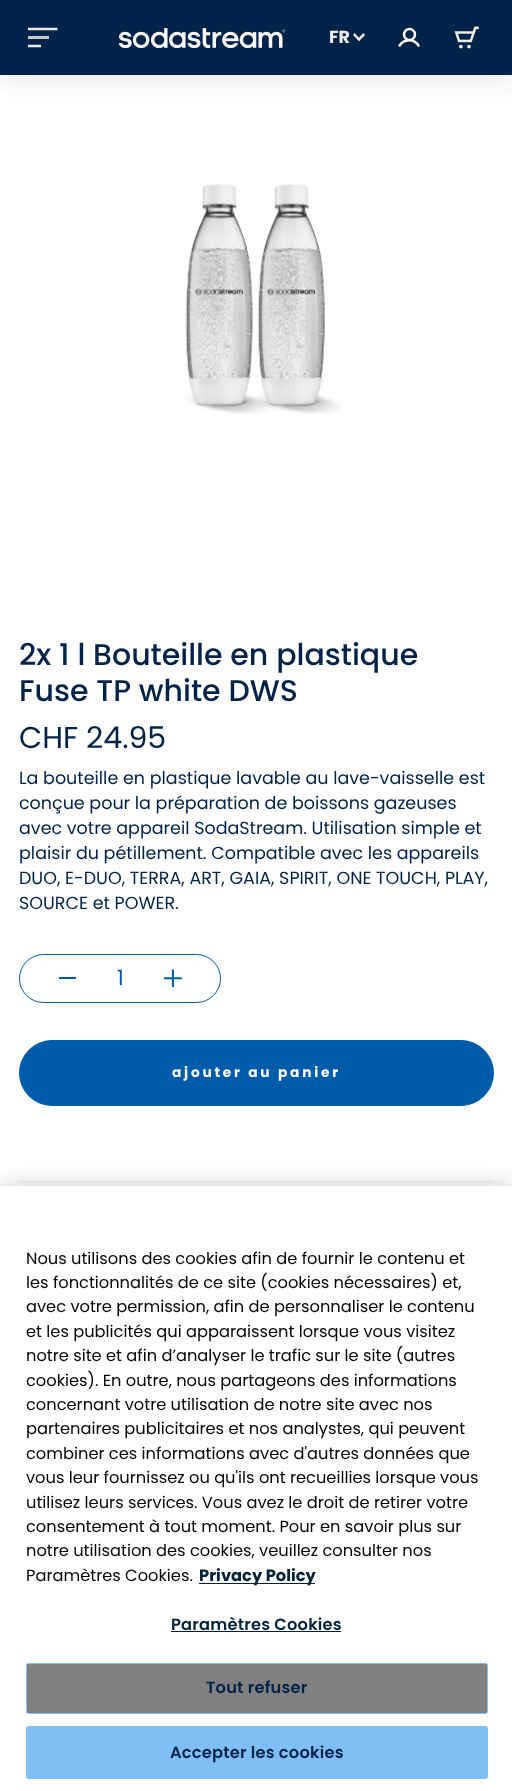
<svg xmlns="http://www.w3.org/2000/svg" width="512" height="1791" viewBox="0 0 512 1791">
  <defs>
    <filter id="blur1" x="-50%" y="-200%" width="200%" height="500%"><feGaussianBlur stdDeviation="12.5"/></filter>
    <clipPath id="clip1"><rect x="28" y="23" width="30" height="30"/></clipPath>
    <filter id="blur2" x="-50%" y="-200%" width="200%" height="500%"><feGaussianBlur stdDeviation="11"/></filter>
  </defs>
  <rect width="100%" height="100%" fill="#ffffff"/>
  <rect x="0" y="4" width="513" height="75" fill="#525353" fill-opacity="0.15" filter="url(#blur1)"/>
  <rect x="0" y="0" width="512" height="75" fill="#002349"/>
  <g clip-path="url(#clip1)">
    <path d="M27.5 29H57.5" fill="none" stroke="#efebe4" stroke-width="2.5"/>
  </g>
  <rect x="28" y="36" width="21" height="3" fill="#c7caca"/>
  <g clip-path="url(#clip1)">
    <path d="M27.5 46H41" fill="none" stroke="#efebe4" stroke-width="2.5"/>
  </g>
  <image x="119" y="28" width="166" height="20" href="img1.png"/>
  <text x="329" y="43" font-family="Poppins" font-size="17.5" font-weight="bold" fill="#efebe4">FR</text>
  <path d="M363.5 33L365 35L359 41L357 39.5Z" fill="#efebe4"/>
  <path d="M354.5 33L360.5 39.5L359 41L353 35Z" fill="#efebe4"/>
  <circle cx="409.5" cy="34.5" r="5.5" fill="none" stroke="#faf8f8" stroke-width="2.5"/>
  <path d="M399 46.5C403.5 38.5 414.5 38 419 46.5" fill="none" stroke="#faf8f8" stroke-width="2.5"/>
  <image x="454" y="26" width="25" height="23" href="img2.png"/>
  <image x="185" y="184" width="156" height="230" href="img3.png"/>
  <text x="19" y="665" font-family="Poppins" font-size="30" font-weight="500" fill="#002349">2x 1 l Bouteille en plastique</text>
  <text x="19" y="701" font-family="Poppins" font-size="30" font-weight="500" fill="#002349">Fuse TP white DWS</text>
  <text x="19" y="748" font-family="Poppins" font-size="30" fill="#002349">CHF 24.95</text>
  <text x="19" y="784" font-family="Poppins" font-size="17.5" fill="#002349">La bouteille en plastique lavable au lave-vaisselle est</text>
  <text x="19" y="809" font-family="Poppins" font-size="17.5" fill="#002349">conçue pour la préparation de boissons gazeuses</text>
  <text x="19" y="834" font-family="Poppins" font-size="17.5" fill="#002349">avec votre appareil SodaStream. Utilisation simple et</text>
  <text x="19" y="859" font-family="Poppins" font-size="17.5" fill="#002349">plaisir du pétillement. Compatible avec les appareils</text>
  <text x="19" y="884" font-family="Poppins" font-size="17.5" fill="#002349">DUO, E-DUO, TERRA, ART, GAIA, SPIRIT, ONE TOUCH, PLAY,</text>
  <text x="19" y="909" font-family="Poppins" font-size="17.5" fill="#002349">SOURCE et POWER.</text>
  <rect x="19.5" y="954.5" width="201" height="48" rx="24" fill="none" stroke="#005bab"/>
  <rect x="59" y="977" width="17" height="2" fill="#005bab"/>
  <text x="117" y="985" font-family="Poppins" font-size="21" fill="#005bab">1</text>
  <image x="164" y="969" width="18" height="19" href="img4.png"/>
  <rect x="19.5" y="1040.5" width="474" height="65" rx="32.5" fill="#005bab" stroke="#005bab"/>
  <text x="172" y="1077" font-family="Poppins" font-size="13.75" font-weight="bold" letter-spacing="2.75" fill="#ffffff">ajouter au panier</text>
  <rect x="19" y="1181" width="475" height="1" fill="#eceeef"/>
  <rect x="0" y="1186" width="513" height="605" fill="#000000" fill-opacity="0.2" filter="url(#blur2)"/>
  <rect x="0" y="1186" width="512" height="605" fill="#ffffff"/>
  <text x="26" y="1264" font-family="Poppins" font-size="16.25" fill="#050505">Nous utilisons des cookies afin de fournir le contenu et</text>
  <text x="26" y="1288" font-family="Poppins" font-size="16.25" fill="#050505">les fonctionnalités de ce site (cookies nécessaires) et,</text>
  <text x="26" y="1312" font-family="Poppins" font-size="16.25" fill="#050505">avec votre permission, afin de personnaliser le contenu</text>
  <text x="26" y="1337" font-family="Poppins" font-size="16.25" fill="#050505">et les publicités qui apparaissent lorsque vous visitez</text>
  <text x="26" y="1361" font-family="Poppins" font-size="16.25" fill="#050505">notre site et afin d’analyser le trafic sur le site (autres</text>
  <text x="26" y="1386" font-family="Poppins" font-size="16.25" fill="#050505">cookies). En outre, nous partageons des informations</text>
  <text x="26" y="1410" font-family="Poppins" font-size="16.25" fill="#050505">concernant votre utilisation de notre site avec nos</text>
  <text x="26" y="1434" font-family="Poppins" font-size="16.25" fill="#050505">partenaires publicitaires et nos analystes, qui peuvent</text>
  <text x="26" y="1459" font-family="Poppins" font-size="16.25" fill="#050505">combiner ces informations avec d'autres données que</text>
  <text x="26" y="1483" font-family="Poppins" font-size="16.25" fill="#050505">vous leur fournissez ou qu'ils ont recueillies lorsque vous</text>
  <text x="26" y="1508" font-family="Poppins" font-size="16.25" fill="#050505">utilisez leurs services. Vous avez le droit de retirer votre</text>
  <text x="26" y="1532" font-family="Poppins" font-size="16.25" fill="#050505">consentement à tout moment. Pour en savoir plus sur</text>
  <text x="26" y="1556" font-family="Poppins" font-size="16.25" fill="#050505">notre utilisation des cookies, veuillez consulter nos</text>
  <text x="26" y="1581" font-family="Poppins" font-size="16.25" fill="#050505">Paramètres Cookies.</text>
  <rect x="199" y="1583" width="116" height="1" fill="#002238"/>
  <text x="199" y="1581" font-family="Poppins" font-size="16.25" font-weight="bold" fill="#002238">Privacy Policy</text>
  <text x="171" y="1630" font-family="Poppins" font-size="16.25" font-weight="600" letter-spacing="0.2" fill="#002238">Paramètres Cookies</text>
  <rect x="171" y="1631" width="170" height="1" fill="#002238"/>
  <rect x="26.5" y="1663.5" width="461" height="50" rx="2" fill="#808080" stroke="#7fbff5"/>
  <text x="206" y="1693" font-family="Poppins" font-size="16.25" font-weight="600" letter-spacing="0.2" fill="#002349">Tout refuser</text>
  <rect x="26.5" y="1726.5" width="461" height="52" rx="2" fill="#7fbff5" stroke="#7fbff5"/>
  <text x="170" y="1758" font-family="Poppins" font-size="16.25" font-weight="600" letter-spacing="0.2" fill="#002349">Accepter les cookies</text>
</svg>
